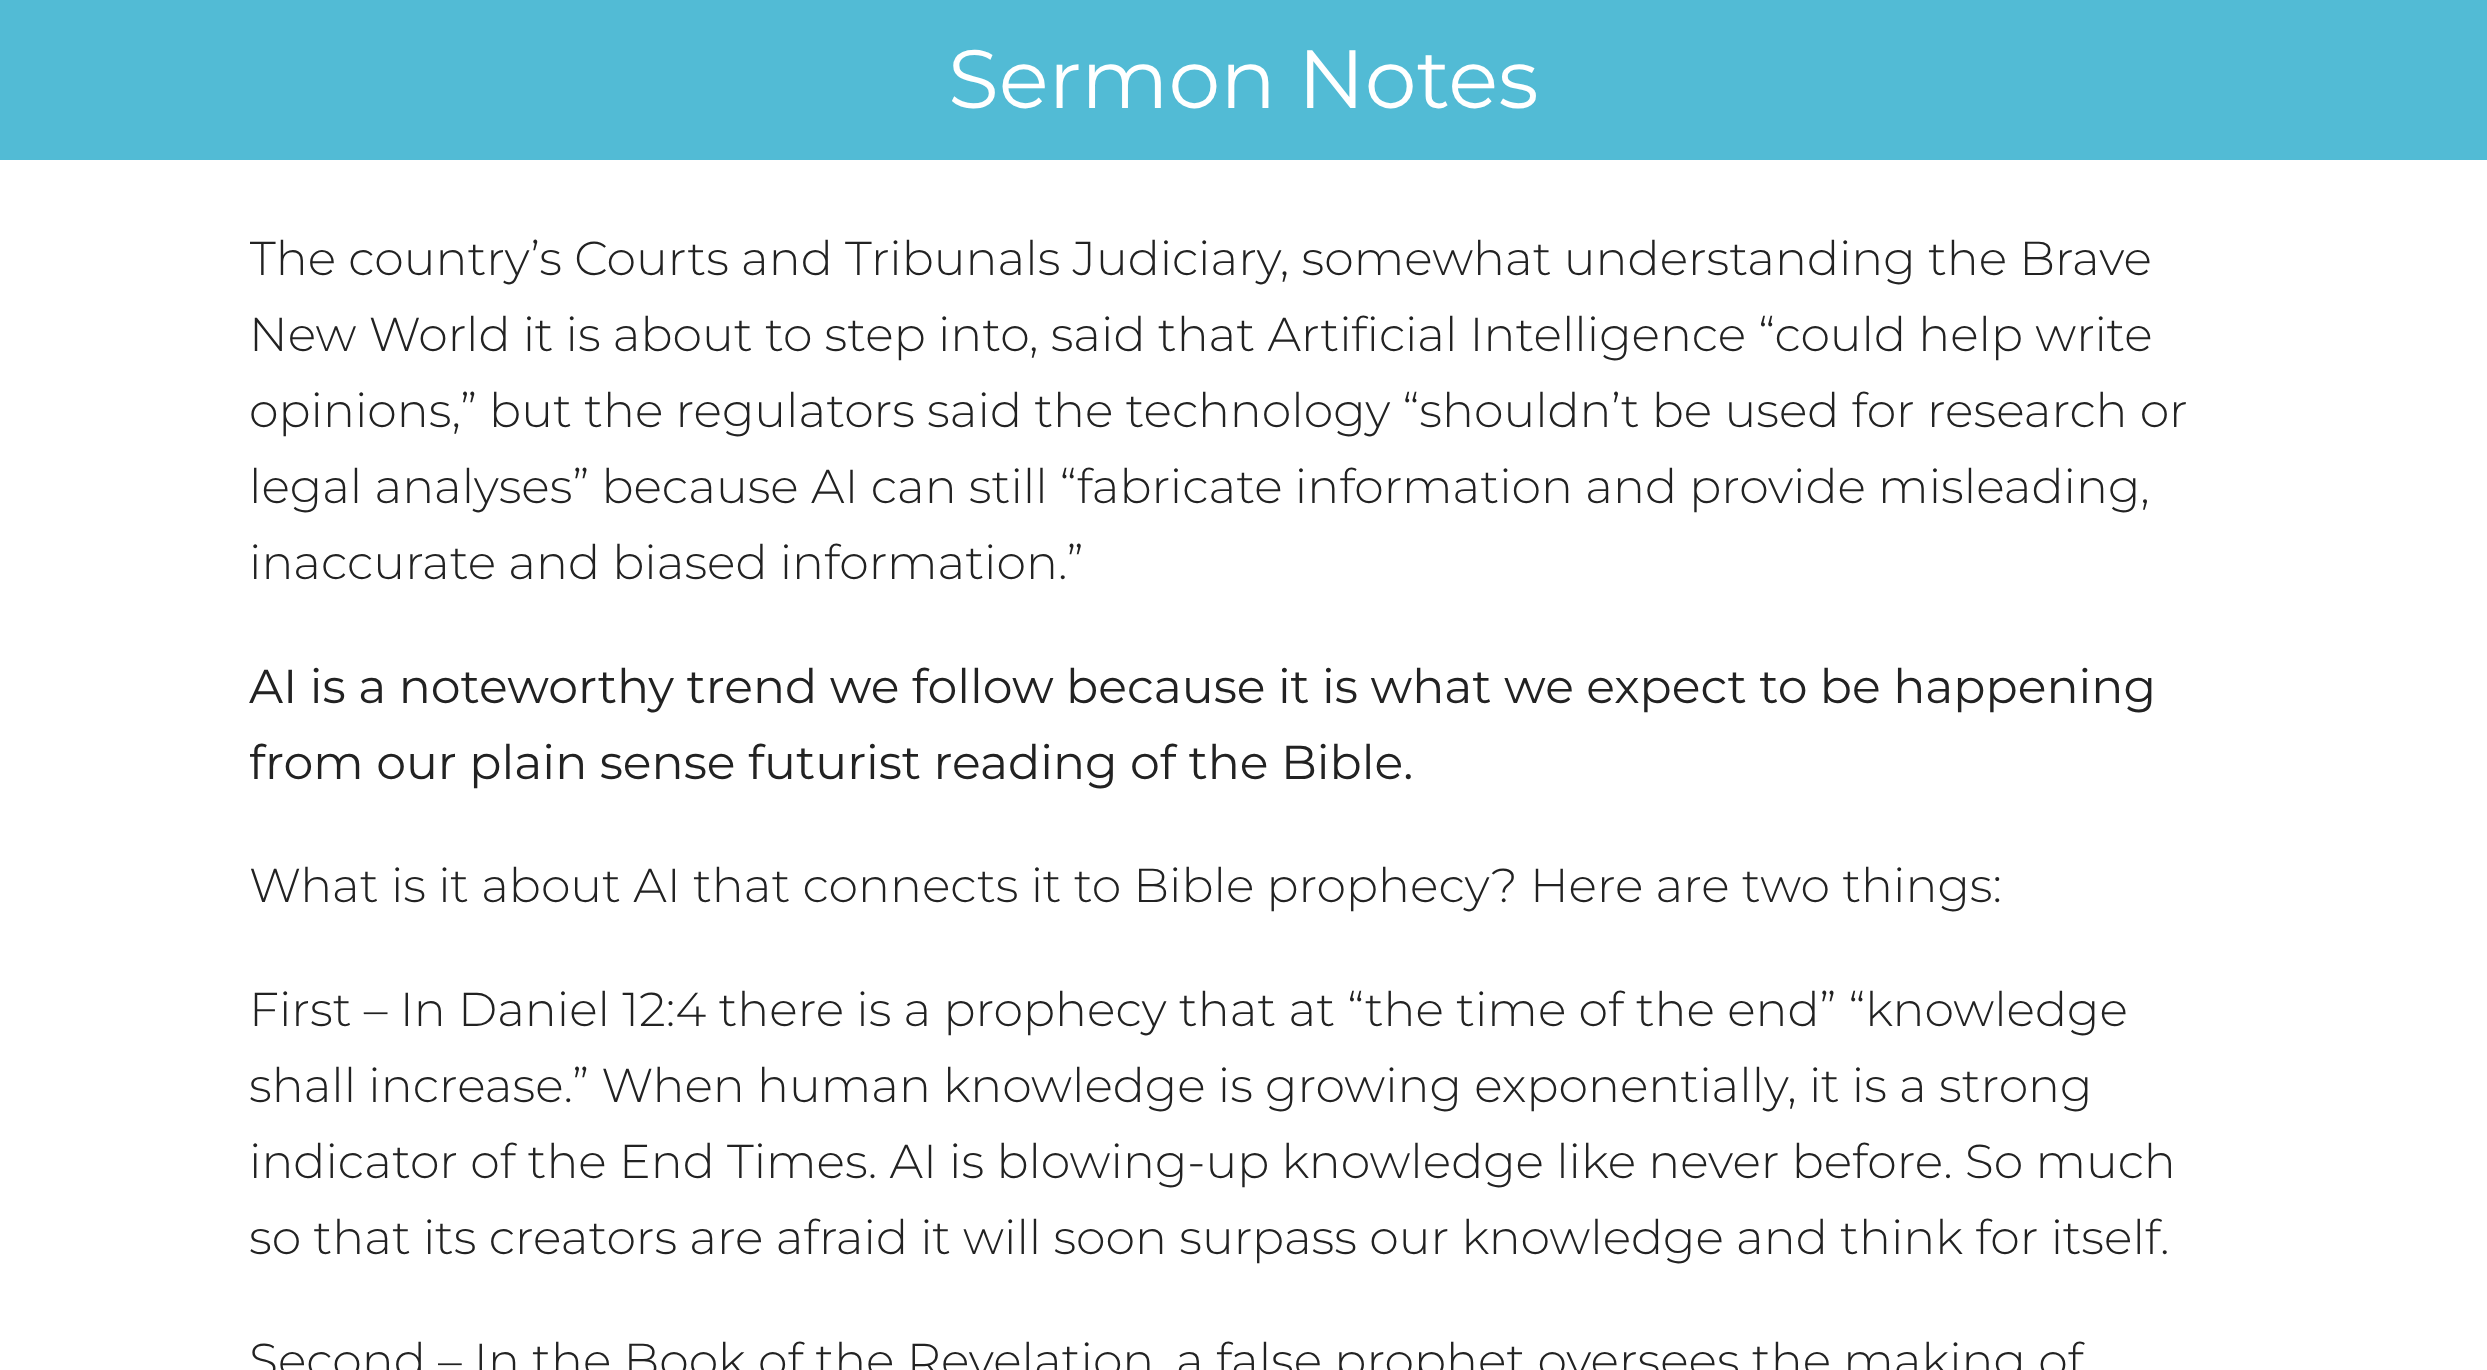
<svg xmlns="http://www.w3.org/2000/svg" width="2487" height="1370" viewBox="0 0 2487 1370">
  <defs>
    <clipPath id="clip1"><rect x="250" y="0" width="1990" height="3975"/></clipPath>
  </defs>
  <rect width="100%" height="100%" fill="#ffffff"/>
  <rect x="0" y="0" width="2487" height="160" fill="#52bbd5"/>
  <text x="948" y="108" font-family="Montserrat" font-size="82.5" fill="#ffffff">Sermon Notes</text>
  <g clip-path="url(#clip1)">
    <text x="249" y="275" font-family="Montserrat" font-size="47.5" font-weight="300" fill="#222222">The country’s Courts and Tribunals Judiciary, somewhat understanding the Brave</text>
  </g>
  <text x="249" y="351" font-family="Montserrat" font-size="47.5" font-weight="300" fill="#222222">New World it is about to step into, said that Artificial Intelligence “could help write</text>
  <text x="249" y="427" font-family="Montserrat" font-size="47.5" font-weight="300" fill="#222222">opinions,” but the regulators said the technology “shouldn’t be used for research or</text>
  <text x="249" y="503" font-family="Montserrat" font-size="47.5" font-weight="300" fill="#222222">legal analyses” because AI can still “fabricate information and provide misleading,</text>
  <text x="249" y="579" font-family="Montserrat" font-size="47.5" font-weight="300" fill="#222222">inaccurate and biased information.”</text>
  <text x="249" y="703" font-family="Montserrat" font-size="47.5" fill="#222222">AI is a noteworthy trend we follow because it is what we expect to be happening</text>
  <g clip-path="url(#clip1)">
    <text x="249" y="779" font-family="Montserrat" font-size="47.5" fill="#222222">from our plain sense futurist reading of the Bible.</text>
  </g>
  <text x="249" y="902" font-family="Montserrat" font-size="47.5" font-weight="300" fill="#222222">What is it about AI that connects it to Bible prophecy? Here are two things:</text>
  <text x="249" y="1026" font-family="Montserrat" font-size="47.5" font-weight="300" fill="#222222">First – In Daniel 12:4 there is a prophecy that at “the time of the end” “knowledge</text>
  <text x="249" y="1102" font-family="Montserrat" font-size="47.5" font-weight="300" fill="#222222">shall increase.” When human knowledge is growing exponentially, it is a strong</text>
  <text x="249" y="1178" font-family="Montserrat" font-size="47.5" font-weight="300" fill="#222222">indicator of the End Times. AI is blowing-up knowledge like never before. So much</text>
  <text x="249" y="1254" font-family="Montserrat" font-size="47.5" font-weight="300" fill="#222222">so that its creators are afraid it will soon surpass our knowledge and think for itself.</text>
  <text x="249" y="1377" font-family="Montserrat" font-size="47.5" font-weight="300" fill="#222222">Second – In the Book of the Revelation, a false prophet oversees the making of</text>
</svg>
